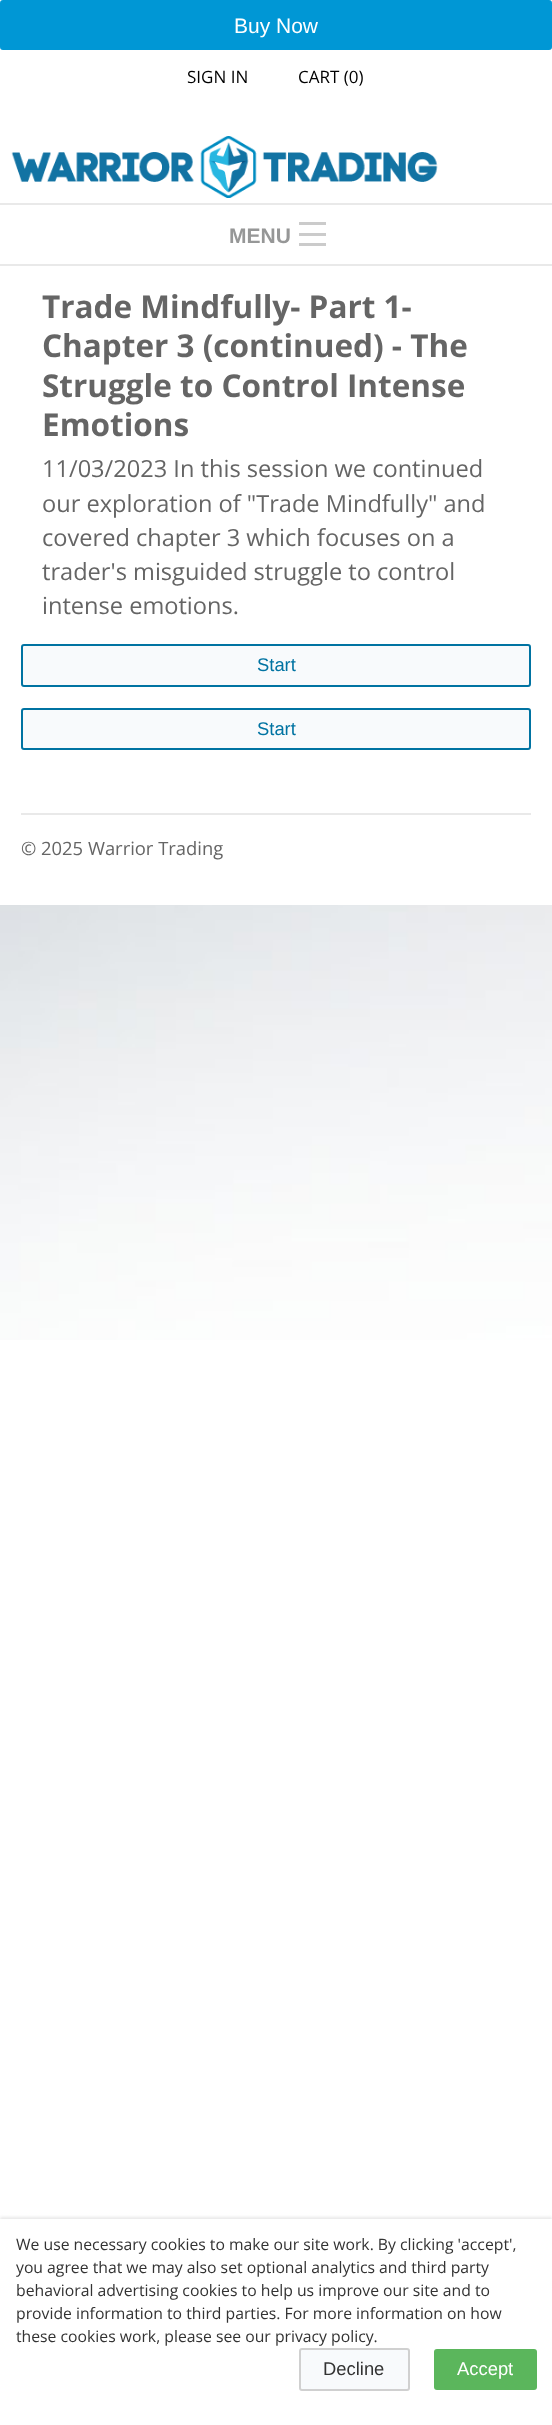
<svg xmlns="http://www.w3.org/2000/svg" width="552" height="2425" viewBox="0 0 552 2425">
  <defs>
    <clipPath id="clip1"><rect x="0" y="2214" width="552" height="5"/></clipPath>
    <filter id="blur1" x="-50%" y="-200%" width="200%" height="500%"><feGaussianBlur stdDeviation="1.5"/></filter>
  </defs>
  <rect width="100%" height="100%" fill="#ffffff"/>
  <image x="0" y="905" width="552" height="435" href="img1.png"/>
  <rect x="1" y="1" width="550" height="48" rx="2" fill="#0097d5" stroke="#0097d5" stroke-width="2"/>
  <text x="234" y="33" font-family="Liberation Sans" font-size="21" fill="#ffffff">Buy Now</text>
  <rect x="22" y="645" width="508" height="41" rx="2" fill="#f8fafc" stroke="#0073a2" stroke-width="2"/>
  <text x="257" y="671" font-family="Liberation Sans" font-size="18.4" fill="#0073a2">Start</text>
  <rect x="22" y="709" width="508" height="40" rx="2" fill="#f8fafc" stroke="#0073a2" stroke-width="2"/>
  <text x="257" y="735" font-family="Liberation Sans" font-size="18.4" fill="#0073a2">Start</text>
  <text x="42" y="318" font-family="Open Sans" font-size="31.5" font-weight="bold" fill="#656565">Trade Mindfully- Part 1-</text>
  <text x="42" y="357" font-family="Open Sans" font-size="31.5" font-weight="bold" fill="#656565">Chapter 3 (continued) - The</text>
  <text x="42" y="397" font-family="Open Sans" font-size="31.5" font-weight="bold" fill="#656565">Struggle to Control Intense</text>
  <text x="42" y="436" font-family="Open Sans" font-size="31.5" font-weight="bold" fill="#656565">Emotions</text>
  <text x="42" y="477" font-family="Open Sans" font-size="23.6" fill="#656565">11/03/2023 In this session we continued</text>
  <text x="42" y="512" font-family="Open Sans" font-size="23.6" fill="#656565">our exploration of "Trade Mindfully" and</text>
  <text x="42" y="546" font-family="Open Sans" font-size="23.6" fill="#656565">covered chapter 3 which focuses on a</text>
  <text x="42" y="580" font-family="Open Sans" font-size="23.6" fill="#656565">trader's misguided struggle to control</text>
  <text x="42" y="614" font-family="Open Sans" font-size="23.6" fill="#656565">intense emotions.</text>
  <text x="187" y="83" font-family="Open Sans" font-size="17" fill="#000000">SIGN IN</text>
  <text x="298" y="83" font-family="Open Sans" font-size="17" fill="#000000">CART (0)</text>
  <image x="11" y="136" width="427" height="62" href="img2.png"/>
  <rect x="0" y="203" width="552" height="2" fill="#e9e9e9"/>
  <rect x="0" y="264" width="552" height="2" fill="#e9e9e9"/>
  <text x="229" y="243" font-family="Liberation Sans" font-size="21" font-weight="bold" fill="#969797">MENU</text>
  <rect x="299" y="243" width="27" height="3" fill="#cbcbcb"/>
  <rect x="299" y="233" width="27" height="3" fill="#cbcbcb"/>
  <rect x="299" y="222" width="27" height="3" fill="#cbcbcb"/>
  <rect x="21" y="813" width="510" height="2" fill="#e9e9e9"/>
  <text x="21" y="855" font-family="Open Sans" font-size="18.4" fill="#656565">© 2025 Warrior Trading</text>
  <g clip-path="url(#clip1)">
    <rect x="0" y="2217" width="552" height="207" fill="#e9e9e9" filter="url(#blur1)"/>
  </g>
  <text x="16" y="2250" font-family="Open Sans" font-size="15.75" fill="#333333">We use necessary cookies to make our site work. By clicking 'accept',</text>
  <text x="16" y="2273" font-family="Open Sans" font-size="15.75" fill="#333333">you agree that we may also set optional analytics and third party</text>
  <text x="16" y="2296" font-family="Open Sans" font-size="15.75" fill="#333333">behavioral advertising cookies to help us improve our site and to</text>
  <text x="16" y="2319" font-family="Open Sans" font-size="15.75" fill="#333333">provide information to third parties. For more information on how</text>
  <text x="16" y="2342" font-family="Open Sans" font-size="15.75" fill="#333333">these cookies work, please see our privacy policy.</text>
  <rect x="300" y="2349" width="109" height="41" rx="2" fill="#f8fafc" stroke="#d0d0d0" stroke-width="2"/>
  <text x="323" y="2375" font-family="Liberation Sans" font-size="18.4" fill="#333333">Decline</text>
  <rect x="434" y="2349" width="103" height="41" rx="3" fill="#5bb65c"/>
  <text x="457" y="2375" font-family="Liberation Sans" font-size="18.4" fill="#ffffff">Accept</text>
</svg>
